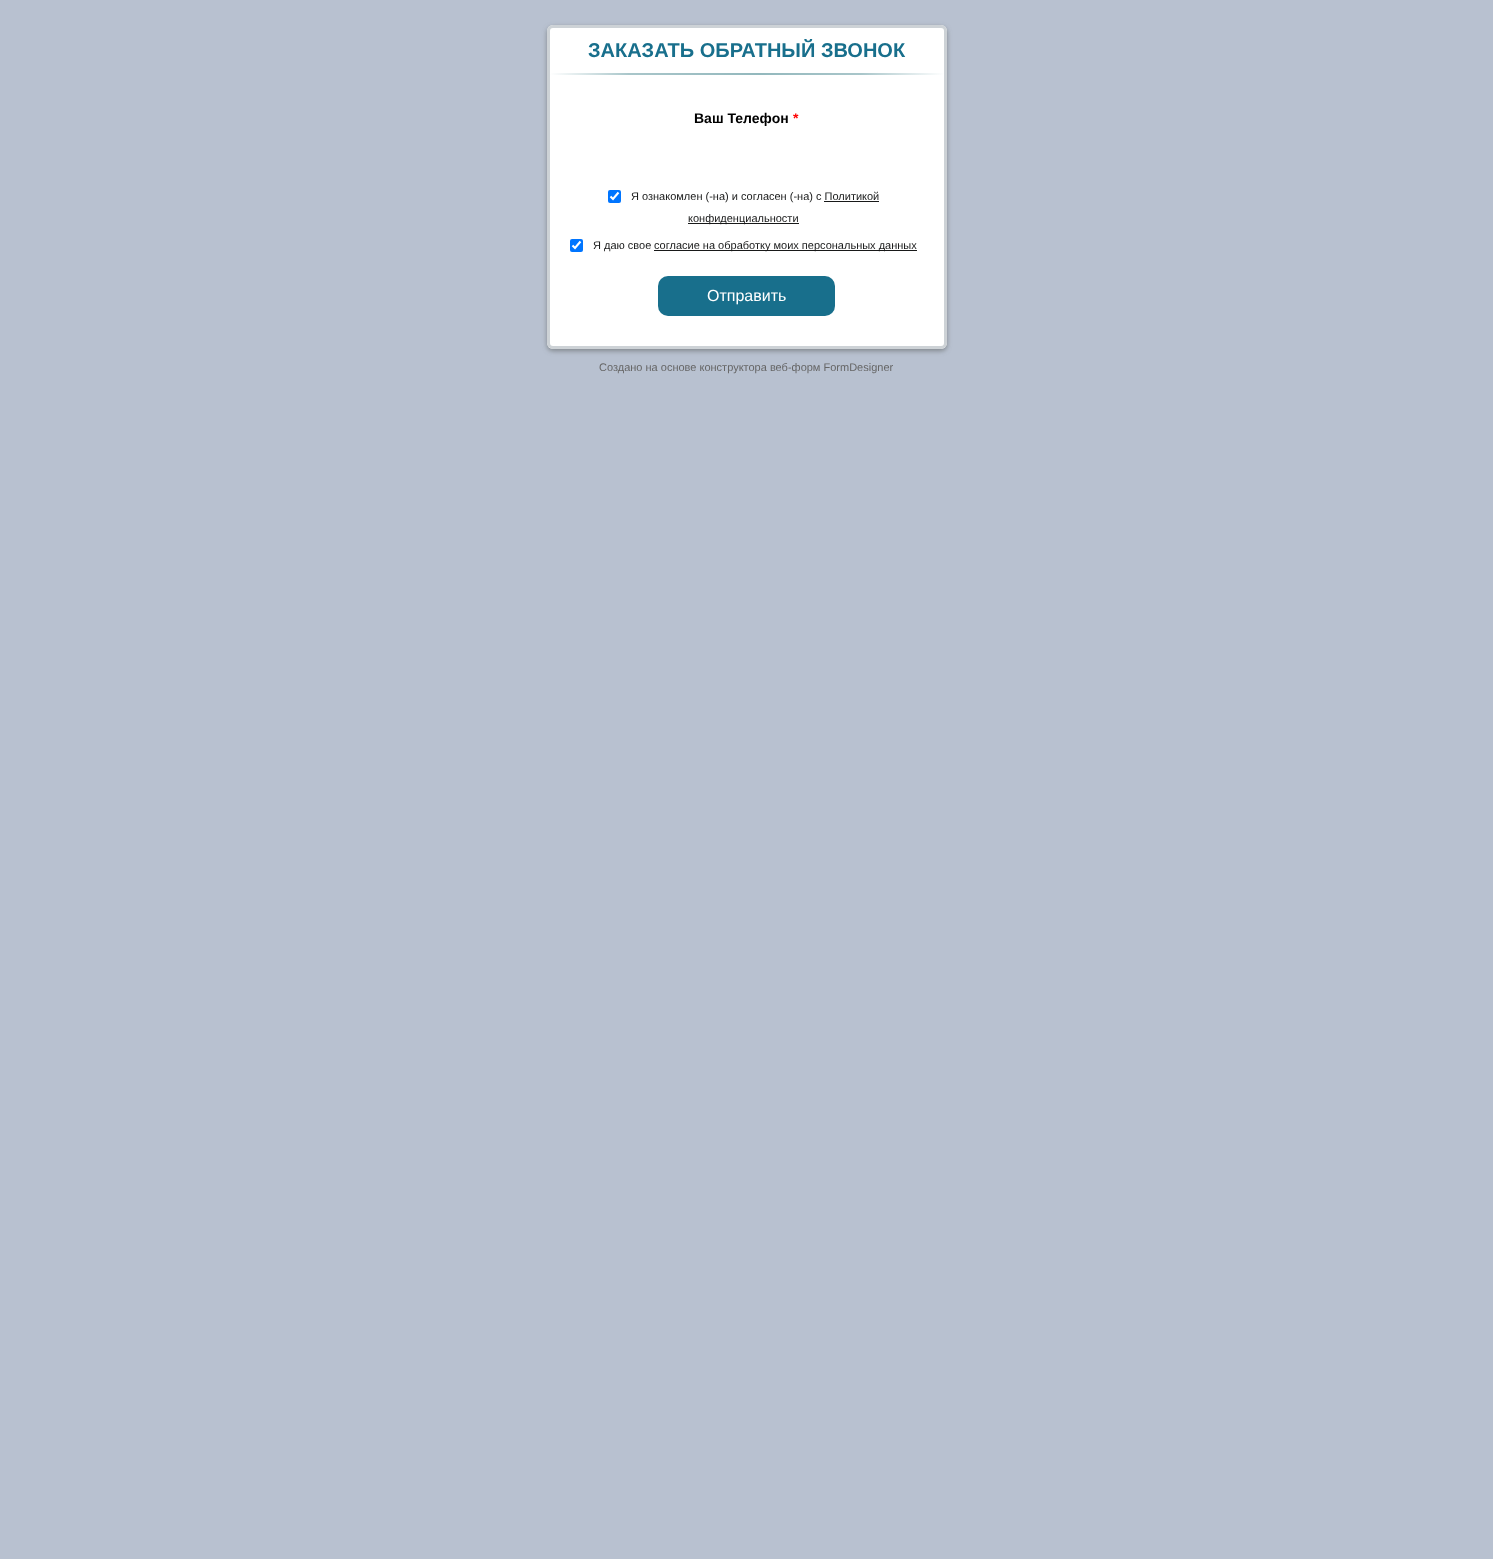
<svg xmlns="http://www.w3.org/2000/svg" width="1493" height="1559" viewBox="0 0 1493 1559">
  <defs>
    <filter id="blur1" x="-50%" y="-200%" width="200%" height="500%"><feGaussianBlur stdDeviation="2.5"/></filter>
    <linearGradient id="g1" gradientUnits="userSpaceOnUse" x1="550" y1="74" x2="944" y2="74"><stop offset="0" stop-color="#ffffff"/><stop offset="0.2" stop-color="#a9c6ca"/><stop offset="0.53" stop-color="#93b8bd"/><stop offset="0.79" stop-color="#a9c6ca"/><stop offset="1" stop-color="#ffffff"/></linearGradient>
  </defs>
  <rect width="100%" height="100%" fill="#b8c1d0"/>
  <rect x="547" y="27" width="400" height="324" rx="6" fill="#696c6d" fill-opacity="0.7" filter="url(#blur1)"/>
  <rect x="547" y="25" width="400" height="324" rx="6" fill="#ffffff"/>
  <rect x="548.5" y="26.5" width="397" height="321" rx="4.5" fill="none" stroke="#c0c7cc" stroke-opacity="0.8" stroke-width="3"/>
  <text x="588" y="57" font-family="Liberation Sans" font-size="20" font-weight="bold" fill="#186f8c">ЗАКАЗАТЬ ОБРАТНЫЙ ЗВОНОК</text>
  <rect x="550" y="73" width="394" height="2" fill="url(#g1)"/>
  <text x="694" y="123" font-family="Liberation Sans" font-size="14" font-weight="bold" fill="#000000">Ваш Телефон</text>
  <text x="793" y="123" font-family="Liberation Sans" font-size="14" font-weight="bold" fill="#ff0000">*</text>
  <rect x="608" y="190" width="13" height="13" rx="2" fill="#0075ff"/>
  <path d="M610.5 196.5L613 199L618.5 192.5" fill="none" stroke="#ffffff" stroke-width="2.1"/>
  <text x="631" y="200" font-family="Liberation Sans" font-size="11" fill="#181919">Я ознакомлен (-на) и согласен (-на) с Политикой</text>
  <rect x="824" y="201" width="55" height="1" fill="#181919"/>
  <rect x="688" y="223" width="111" height="1" fill="#181919"/>
  <text x="688" y="222" font-family="Liberation Sans" font-size="11" fill="#181919">конфиденциальности</text>
  <rect x="570" y="239" width="13" height="13" rx="2" fill="#0075ff"/>
  <path d="M572.5 245.5L575 248L580.5 241.5" fill="none" stroke="#ffffff" stroke-width="2.1"/>
  <text x="593" y="249" font-family="Liberation Sans" font-size="11" fill="#181919">Я даю свое</text>
  <rect x="654" y="250" width="263" height="1" fill="#181919"/>
  <text x="654" y="249" font-family="Liberation Sans" font-size="11" fill="#181919">согласие на обработку моих персональных данных</text>
  <rect x="658" y="276" width="177" height="40" rx="10" fill="#186f8c"/>
  <text x="707" y="301" font-family="Liberation Sans" font-size="16" fill="#ffffff">Отправить</text>
  <text x="599" y="371" font-family="Liberation Sans" font-size="11" fill="#666666">Создано на основе конструктора веб-форм FormDesigner</text>
</svg>
